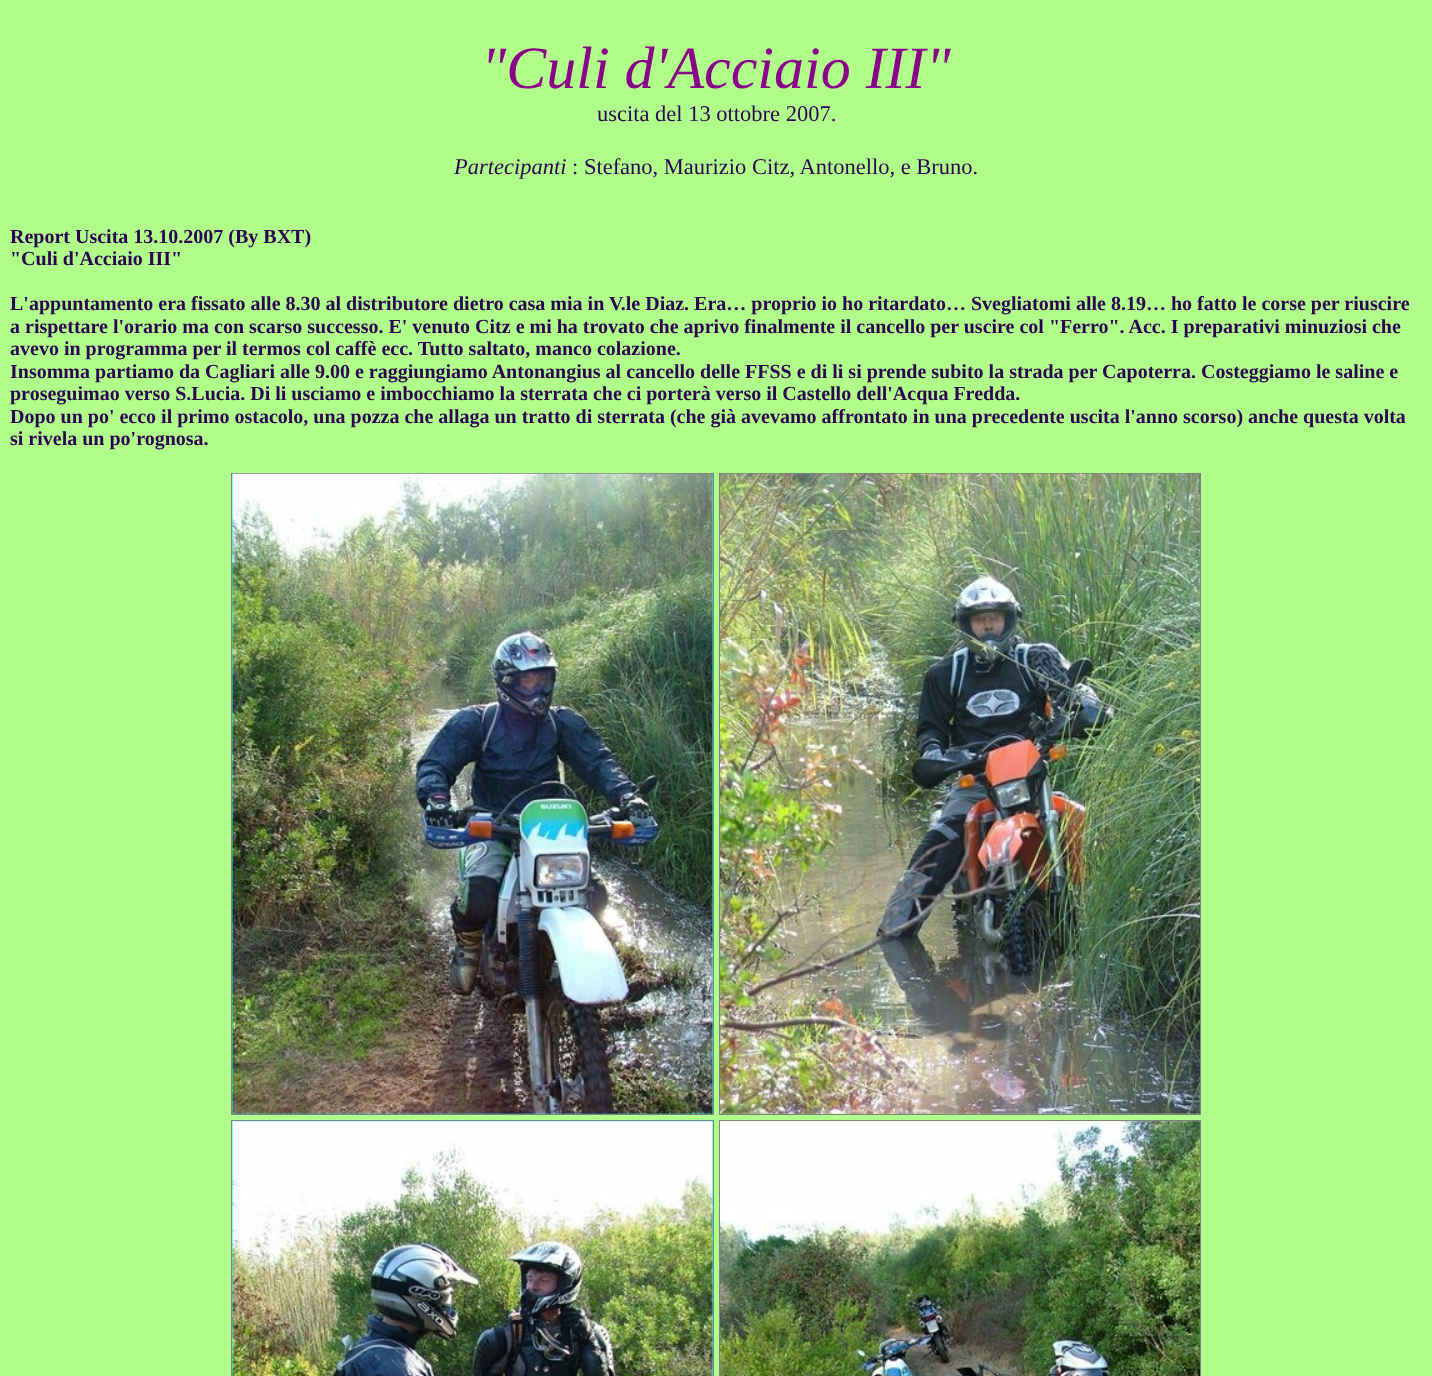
<svg xmlns="http://www.w3.org/2000/svg" width="1432" height="1376" viewBox="0 0 1432 1376">
  <rect width="100%" height="100%" fill="#b0ff8a"/>
  <text x="481" y="88" font-family="Liberation Serif" font-size="60" font-style="italic" fill="#8a008a">"Culi d'Acciaio III"</text>
  <text x="597" y="121" font-family="Liberation Serif" font-size="22.5" fill="#2c0152">uscita del 13 ottobre 2007.</text>
  <text x="454" y="174" font-family="Liberation Serif" font-size="22.5" font-style="italic" fill="#2c0152">Partecipanti</text>
  <text x="572" y="174" font-family="Liberation Serif" font-size="22.5" fill="#2c0152">: Stefano, Maurizio Citz, Antonello, e Bruno.</text>
  <text x="10" y="243" font-family="Liberation Serif" font-size="20" font-weight="bold" fill="#2c0152">Report Uscita 13.10.2007 (By BXT)</text>
  <text x="10" y="265" font-family="Liberation Serif" font-size="20" font-weight="bold" fill="#2c0152">"Culi d'Acciaio III"</text>
  <text x="10" y="310" font-family="Liberation Serif" font-size="20" font-weight="bold" fill="#2c0152">L'appuntamento era fissato alle 8.30 al distributore dietro casa mia in V.le Diaz. Era… proprio io ho ritardato… Svegliatomi alle 8.19… ho fatto le corse per riuscire</text>
  <text x="10" y="333" font-family="Liberation Serif" font-size="20" font-weight="bold" fill="#2c0152">a rispettare l'orario ma con scarso successo. E' venuto Citz e mi ha trovato che aprivo finalmente il cancello per uscire col "Ferro". Acc. I preparativi minuziosi che</text>
  <text x="10" y="355" font-family="Liberation Serif" font-size="20" font-weight="bold" fill="#2c0152">avevo in programma per il termos col caffè ecc. Tutto saltato, manco colazione.</text>
  <text x="10" y="378" font-family="Liberation Serif" font-size="20" font-weight="bold" fill="#2c0152">Insomma partiamo da Cagliari alle 9.00 e raggiungiamo Antonangius al cancello delle FFSS e di li si prende subito la strada per Capoterra. Costeggiamo le saline e</text>
  <text x="10" y="400" font-family="Liberation Serif" font-size="20" font-weight="bold" fill="#2c0152">proseguimao verso S.Lucia. Di li usciamo e imbocchiamo la sterrata che ci porterà verso il Castello dell'Acqua Fredda.</text>
  <text x="10" y="423" font-family="Liberation Serif" font-size="20" font-weight="bold" fill="#2c0152">Dopo un po' ecco il primo ostacolo, una pozza che allaga un tratto di sterrata (che già avevamo affrontato in una precedente uscita l'anno scorso) anche questa volta</text>
  <text x="10" y="445" font-family="Liberation Serif" font-size="20" font-weight="bold" fill="#2c0152">si rivela un po'rognosa.</text>
  <rect x="231.5" y="473.5" width="482" height="641" fill="#00ffff" stroke="#808080"/>
  <image x="232" y="473" width="481" height="641" href="img1.png"/>
  <rect x="719.5" y="473.5" width="481" height="641" fill="none" stroke="#808080"/>
  <image x="720" y="473" width="480" height="641" href="img2.png"/>
  <rect x="231.5" y="1120.5" width="482" height="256" fill="#00ffff" stroke="#808080"/>
  <rect x="719.5" y="1120.5" width="481" height="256" fill="none" stroke="#808080"/>
  <image x="232" y="1121" width="481" height="255" href="img3.png"/>
  <image x="720" y="1121" width="480" height="255" href="img4.png"/>
</svg>
